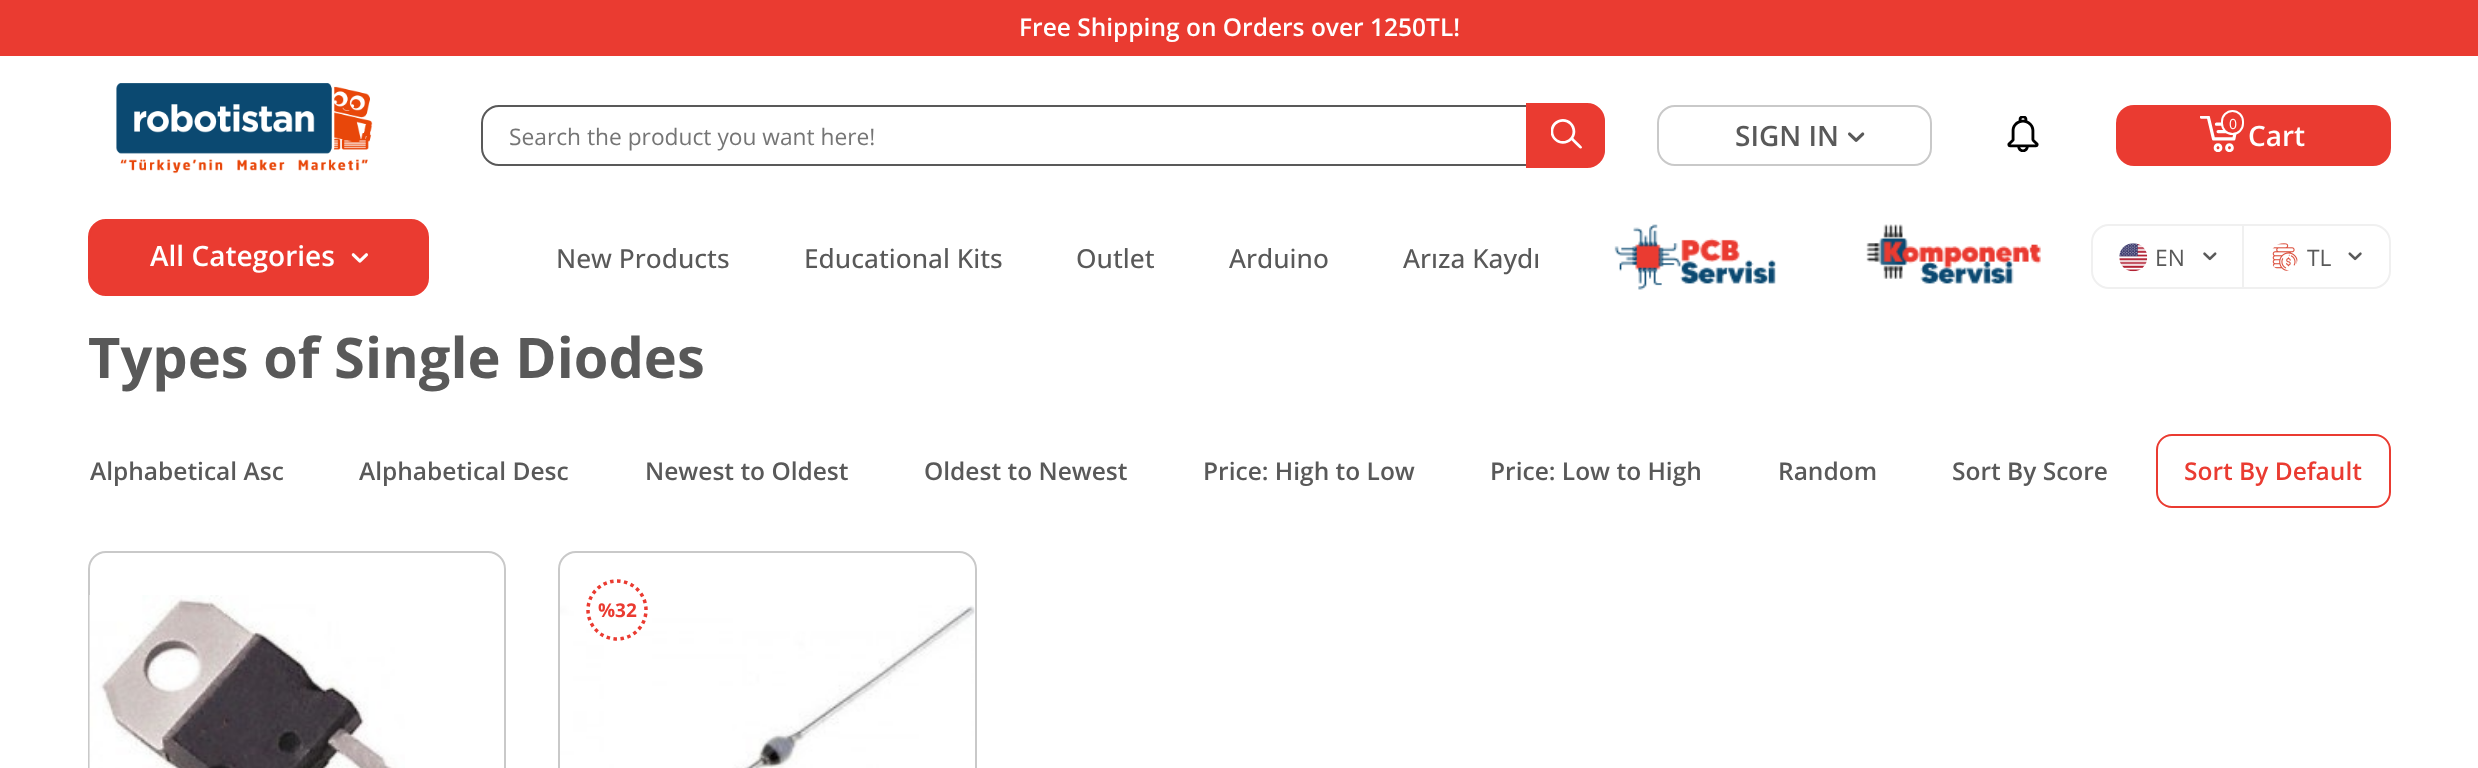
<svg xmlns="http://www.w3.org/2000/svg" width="2478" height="768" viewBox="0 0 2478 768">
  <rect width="100%" height="100%" fill="#ffffff"/>
  <rect x="0" y="0" width="2478" height="56" fill="#ea3b31"/>
  <text x="1019" y="36" font-family="Open Sans" font-size="24.5" font-weight="600" fill="#ffffff">Free Shipping on Orders over 1250TL!</text>
  <image x="116" y="83" width="257" height="91" href="img1.png"/>
  <rect x="482" y="106" width="1122" height="59" rx="17" fill="none" stroke="#595959" stroke-width="2"/>
  <text x="509" y="145" font-family="Open Sans" font-size="22.75" fill="#757575">Search the product you want here!</text>
  <path d="M1527 104H1587C1596.5 104 1604 111.5 1604 121V150C1604 159.5 1596.5 167 1587 167H1527Z" fill="#ea3b31" stroke="#ea3b31" stroke-width="2"/>
  <image x="1551" y="119" width="31" height="30" href="img2.png"/>
  <rect x="1658" y="106" width="273" height="59" rx="17" fill="none" stroke="#c9c9c9" stroke-width="2"/>
  <text x="1735" y="146" font-family="Open Sans" font-size="28" font-weight="600" fill="#595959">SIGN IN</text>
  <image x="1848" y="132" width="17" height="10" href="img3.png"/>
  <image x="2007" y="116" width="32" height="36" href="img4.png"/>
  <rect x="2116" y="105" width="275" height="61" rx="18" fill="#ea3b31"/>
  <image x="2200" y="116" width="37" height="36" href="img5.png"/>
  <rect x="2222" y="111" width="21" height="23" rx="10.5" fill="#ea3b31" stroke="#ffffff" stroke-width="2"/>
  <text x="2229" y="129" font-family="Open Sans" font-size="14" fill="#ffffff">0</text>
  <text x="2248" y="146" font-family="Open Sans" font-size="28" font-weight="600" fill="#ffffff">Cart</text>
  <rect x="89" y="220" width="339" height="75" rx="17" fill="#ea3b31" stroke="#ea3b31" stroke-width="2"/>
  <text x="150" y="266" font-family="Open Sans" font-size="28" font-weight="600" fill="#ffffff">All Categories</text>
  <image x="351" y="253" width="17" height="10" href="img6.png"/>
  <text x="556" y="268" font-family="Open Sans" font-size="26.25" font-weight="500" fill="#595959">New Products</text>
  <text x="804" y="268" font-family="Open Sans" font-size="26.25" font-weight="500" fill="#595959">Educational Kits</text>
  <text x="1076" y="268" font-family="Open Sans" font-size="26.25" font-weight="500" fill="#595959">Outlet</text>
  <text x="1229" y="268" font-family="Open Sans" font-size="26.25" font-weight="500" fill="#595959">Arduino</text>
  <text x="1403" y="268" font-family="Open Sans" font-size="26.25" font-weight="500" fill="#595959">Arıza Kaydı</text>
  <image x="1614" y="224" width="162" height="66" href="img7.png"/>
  <image x="1866" y="224" width="175" height="60" href="img8.png"/>
  <rect x="2092" y="225" width="298" height="63" rx="17" fill="none" stroke="#f0f0f0" stroke-width="2"/>
  <image x="2119" y="243" width="29" height="29" href="img9.png"/>
  <text x="2155" y="266" font-family="Open Sans" font-size="22.75" fill="#595959">EN</text>
  <image x="2203" y="252" width="14" height="9" href="img10.png"/>
  <rect x="2242" y="226" width="2" height="61" fill="#f0f0f0"/>
  <image x="2272" y="243" width="26" height="28" href="img11.png"/>
  <text x="2307" y="266" font-family="Open Sans" font-size="22.75" fill="#595959">TL</text>
  <image x="2348" y="252" width="14" height="9" href="img12.png"/>
  <text x="88" y="378" font-family="Open Sans" font-size="56" font-weight="bold" fill="#595959">Types of Single Diodes</text>
  <text x="90" y="480" font-family="Open Sans" font-size="24.5" font-weight="600" fill="#595959">Alphabetical Asc</text>
  <text x="359" y="480" font-family="Open Sans" font-size="24.5" font-weight="600" fill="#595959">Alphabetical Desc</text>
  <text x="645" y="480" font-family="Open Sans" font-size="24.5" font-weight="600" fill="#595959">Newest to Oldest</text>
  <text x="924" y="480" font-family="Open Sans" font-size="24.5" font-weight="600" fill="#595959">Oldest to Newest</text>
  <text x="1203" y="480" font-family="Open Sans" font-size="24.5" font-weight="600" fill="#595959">Price: High to Low</text>
  <text x="1490" y="480" font-family="Open Sans" font-size="24.5" font-weight="600" fill="#595959">Price: Low to High</text>
  <text x="1778" y="480" font-family="Open Sans" font-size="24.5" font-weight="600" fill="#595959">Random</text>
  <text x="1952" y="480" font-family="Open Sans" font-size="24.5" font-weight="600" fill="#595959">Sort By Score</text>
  <rect x="2157" y="435" width="233" height="72" rx="15" fill="none" stroke="#ea3b31" stroke-width="2"/>
  <text x="2184" y="480" font-family="Open Sans" font-size="24.5" font-weight="600" fill="#ea3b31">Sort By Default</text>
  <rect x="89" y="552" width="416" height="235" rx="17" fill="none" stroke="#c9c9c9" stroke-width="2"/>
  <image x="89" y="595" width="316" height="173" href="img13.png"/>
  <rect x="559" y="552" width="417" height="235" rx="17" fill="none" stroke="#c9c9c9" stroke-width="2"/>
  <image x="560" y="605" width="415" height="163" href="img14.png"/>
  <path d="M617 581C633 581 646 594 646 610C646 626 633 639 617 639C601 639 588 626 588 610C588 594 601 581 617 581Z" fill="none" stroke="#ea3b31" stroke-width="3.5" stroke-dasharray="3.5 3.5"/>
  <text x="598" y="617" font-family="Open Sans" font-size="19" font-weight="bold" fill="#ea3b31">%32</text>
</svg>
